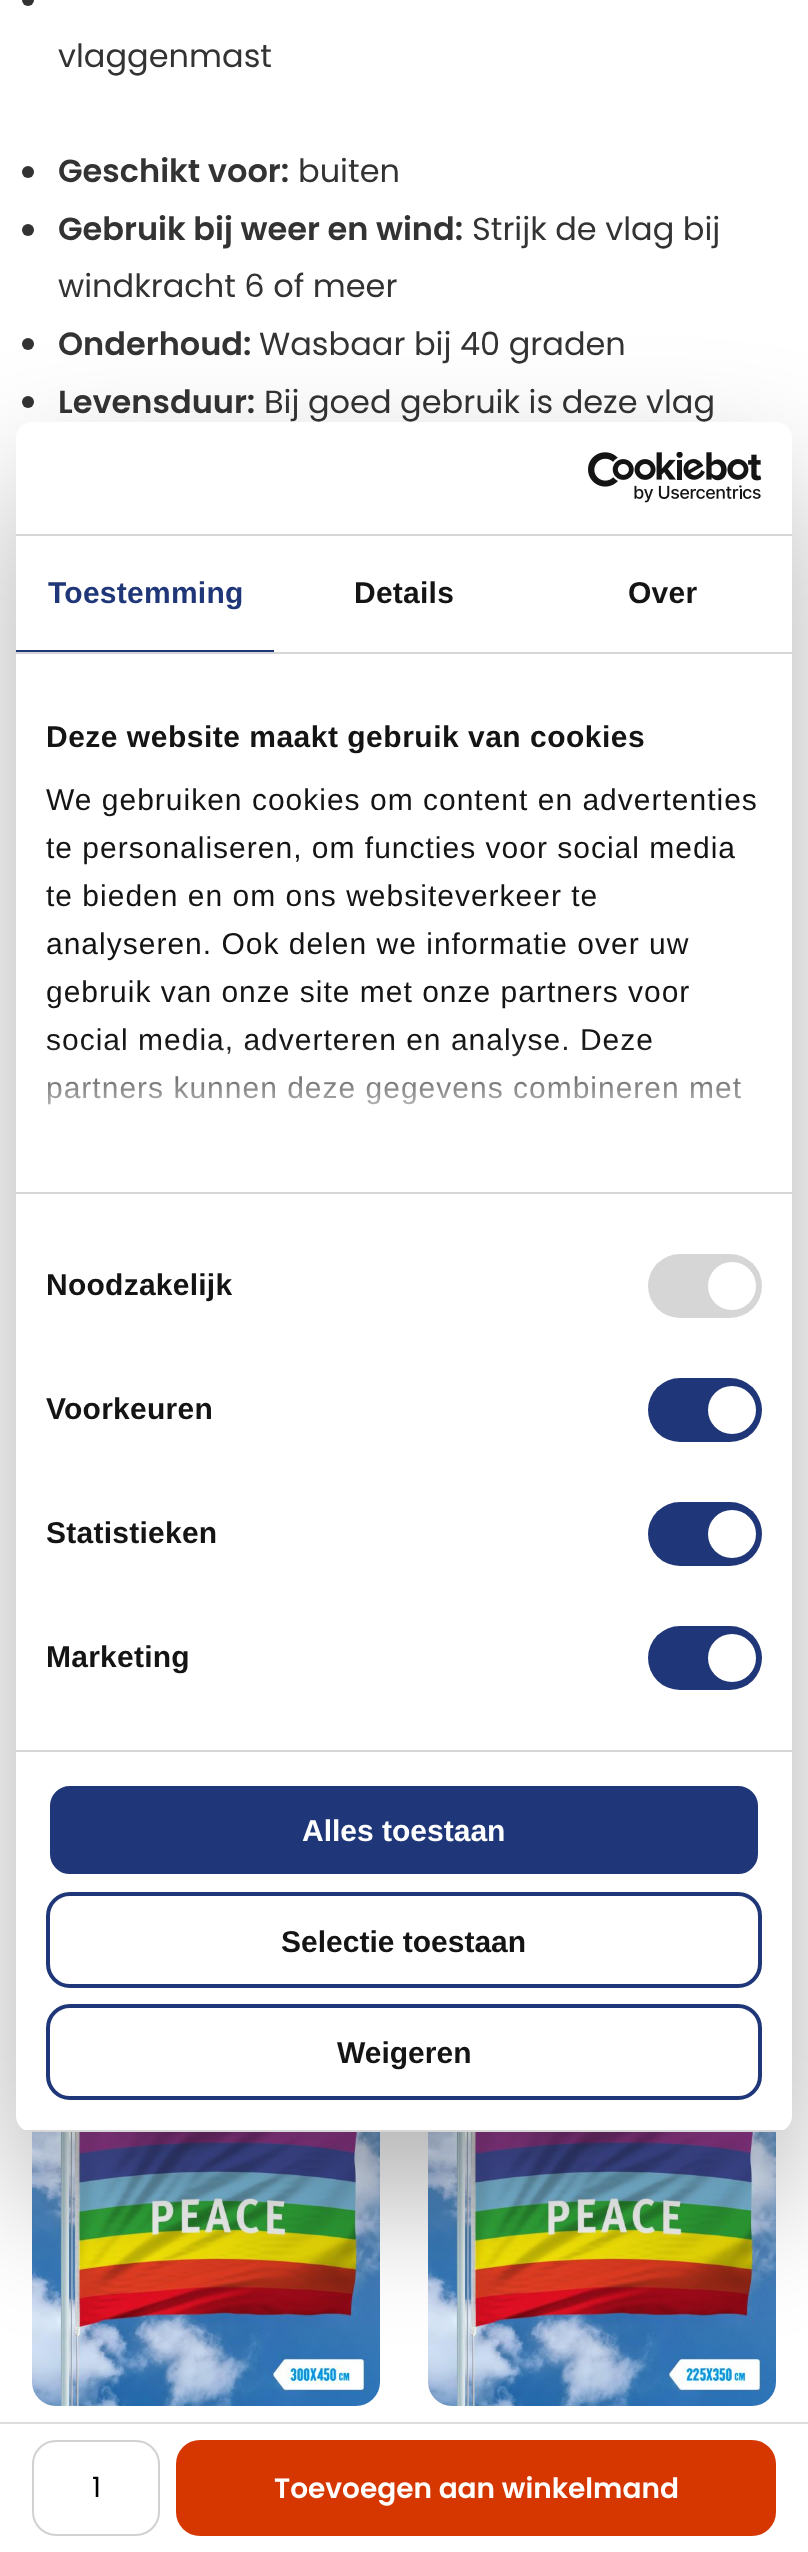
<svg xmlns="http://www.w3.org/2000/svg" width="808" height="2552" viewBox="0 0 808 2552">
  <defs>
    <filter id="blur1" x="-50%" y="-200%" width="200%" height="500%"><feGaussianBlur stdDeviation="68"/></filter>
    <linearGradient id="g1" gradientUnits="userSpaceOnUse" x1="391" y1="1192" x2="391" y2="1042"><stop offset="0" stop-color="#ffffff"/><stop offset="0.5" stop-color="#ffffff" stop-opacity="0.8"/><stop offset="1" stop-color="#ffffff" stop-opacity="0"/></linearGradient>
    <clipPath id="clip1"><rect x="16" y="422" width="776" height="1710" rx="16"/></clipPath>
  </defs>
  <rect width="100%" height="100%" fill="#ffffff"/>
  <circle cx="28" cy="0" r="6" fill="#333333"/>
  <text x="58" y="67" font-family="Poppins" font-size="32" fill="#333333">vlaggenmast</text>
  <circle cx="28" cy="172" r="6" fill="#333333"/>
  <text x="58" y="182" font-family="Poppins" font-size="32" font-weight="600" fill="#333333">Geschikt voor:</text>
  <text x="298" y="182" font-family="Poppins" font-size="32" fill="#333333">buiten</text>
  <circle cx="28" cy="230" r="6" fill="#333333"/>
  <text x="58" y="240" font-family="Poppins" font-size="32" font-weight="600" fill="#333333">Gebruik bij weer en wind:</text>
  <text x="472" y="240" font-family="Poppins" font-size="32" fill="#333333">Strijk de vlag bij</text>
  <text x="58" y="297" font-family="Poppins" font-size="32" fill="#333333">windkracht 6 of meer</text>
  <circle cx="28" cy="344" r="6" fill="#333333"/>
  <text x="58" y="355" font-family="Poppins" font-size="32" font-weight="600" fill="#333333">Onderhoud:</text>
  <text x="259" y="355" font-family="Poppins" font-size="32" fill="#333333">Wasbaar bij 40 graden</text>
  <circle cx="28" cy="402" r="6" fill="#333333"/>
  <text x="58" y="413" font-family="Poppins" font-size="32" font-weight="600" fill="#333333">Levensduur:</text>
  <text x="264" y="413" font-family="Poppins" font-size="32" fill="#333333">Bij goed gebruik is deze vlag</text>
  <image x="32" y="2132" width="348" height="274" href="img1.png"/>
  <image x="428" y="2132" width="348" height="274" href="img2.png"/>
  <rect x="0" y="2422" width="808" height="2" fill="#dddddd"/>
  <rect x="33" y="2441" width="126" height="94" rx="23" fill="none" stroke="#d1d1d1" stroke-width="2"/>
  <text x="92" y="2497" font-family="Poppins" font-size="28" fill="#000000">1</text>
  <rect x="176" y="2440" width="600" height="96" rx="24" fill="#d63600"/>
  <text x="274" y="2498" font-family="Poppins" font-size="28" font-weight="600" fill="#ffffff">Toevoegen aan winkelmand</text>
  <rect x="16" y="486" width="776" height="1710" rx="16" fill="#000000" fill-opacity="0.3" filter="url(#blur1)"/>
  <rect x="16" y="422" width="776" height="1710" rx="16" fill="#ffffff"/>
  <rect x="16" y="534" width="776" height="2" fill="#d6d6d6"/>
  <image x="588" y="452" width="174" height="51" href="img3.png"/>
  <rect x="16" y="652" width="776" height="2" fill="#d6d6d6"/>
  <rect x="16" y="650" width="258" height="2" fill="#1f3778"/>
  <text x="48" y="603" font-family="Liberation Sans" font-size="30" font-weight="bold" letter-spacing="0.25" fill="#1f3778">Toestemming</text>
  <text x="354" y="603" font-family="Liberation Sans" font-size="30" font-weight="bold" letter-spacing="0.25" fill="#141414">Details</text>
  <text x="628" y="603" font-family="Liberation Sans" font-size="30" font-weight="bold" letter-spacing="0.25" fill="#141414">Over</text>
  <rect x="16" y="1192" width="776" height="2" fill="#d6d6d6"/>
  <text x="46" y="747" font-family="Liberation Sans" font-size="30" font-weight="bold" letter-spacing="0.5" fill="#141414">Deze website maakt gebruik van cookies</text>
  <text x="46" y="810" font-family="Liberation Sans" font-size="30" letter-spacing="1" fill="#141414">We gebruiken cookies om content en advertenties</text>
  <text x="46" y="858" font-family="Liberation Sans" font-size="30" letter-spacing="1" fill="#141414">te personaliseren, om functies voor social media</text>
  <text x="46" y="906" font-family="Liberation Sans" font-size="30" letter-spacing="1" fill="#141414">te bieden en om ons websiteverkeer te</text>
  <text x="46" y="954" font-family="Liberation Sans" font-size="30" letter-spacing="1" fill="#141414">analyseren. Ook delen we informatie over uw</text>
  <text x="46" y="1002" font-family="Liberation Sans" font-size="30" letter-spacing="1" fill="#141414">gebruik van onze site met onze partners voor</text>
  <text x="46" y="1050" font-family="Liberation Sans" font-size="30" letter-spacing="1" fill="#141414">social media, adverteren en analyse. Deze</text>
  <text x="46" y="1098" font-family="Liberation Sans" font-size="30" letter-spacing="1" fill="#141414">partners kunnen deze gegevens combineren met</text>
  <rect x="47" y="1044" width="694" height="61" fill="url(#g1)"/>
  <rect x="16" y="1750" width="776" height="2" fill="#d6d6d6"/>
  <text x="46" y="1295" font-family="Liberation Sans" font-size="30" font-weight="bold" letter-spacing="0.25" fill="#141414">Noodzakelijk</text>
  <rect x="648" y="1254" width="114" height="64" rx="32" fill="#d6d6d6"/>
  <circle cx="732" cy="1286" r="24" fill="#ffffff"/>
  <text x="46" y="1419" font-family="Liberation Sans" font-size="30" font-weight="bold" letter-spacing="0.25" fill="#141414">Voorkeuren</text>
  <rect x="648" y="1378" width="114" height="64" rx="32" fill="#1f3778"/>
  <circle cx="732" cy="1410" r="24" fill="#ffffff"/>
  <text x="46" y="1543" font-family="Liberation Sans" font-size="30" font-weight="bold" letter-spacing="0.25" fill="#141414">Statistieken</text>
  <rect x="648" y="1502" width="114" height="64" rx="32" fill="#1f3778"/>
  <circle cx="732" cy="1534" r="24" fill="#ffffff"/>
  <text x="46" y="1667" font-family="Liberation Sans" font-size="30" font-weight="bold" letter-spacing="0.25" fill="#141414">Marketing</text>
  <rect x="648" y="1626" width="114" height="64" rx="32" fill="#1f3778"/>
  <circle cx="732" cy="1658" r="24" fill="#ffffff"/>
  <g clip-path="url(#clip1)">
    <rect x="16" y="2130" width="776" height="2" fill="#d6d6d6"/>
  </g>
  <rect x="48" y="1784" width="712" height="92" rx="22" fill="#1f3778" stroke="#ffffff" stroke-width="4"/>
  <text x="302" y="1841" font-family="Liberation Sans" font-size="30" font-weight="bold" fill="#ffffff">Alles toestaan</text>
  <rect x="48" y="1894" width="712" height="92" rx="22" fill="none" stroke="#1f3778" stroke-width="4"/>
  <text x="281" y="1952" font-family="Liberation Sans" font-size="30" font-weight="bold" fill="#141414">Selectie toestaan</text>
  <rect x="48" y="2006" width="712" height="92" rx="22" fill="none" stroke="#1f3778" stroke-width="4"/>
  <text x="337" y="2063" font-family="Liberation Sans" font-size="30" font-weight="bold" fill="#141414">Weigeren</text>
</svg>
